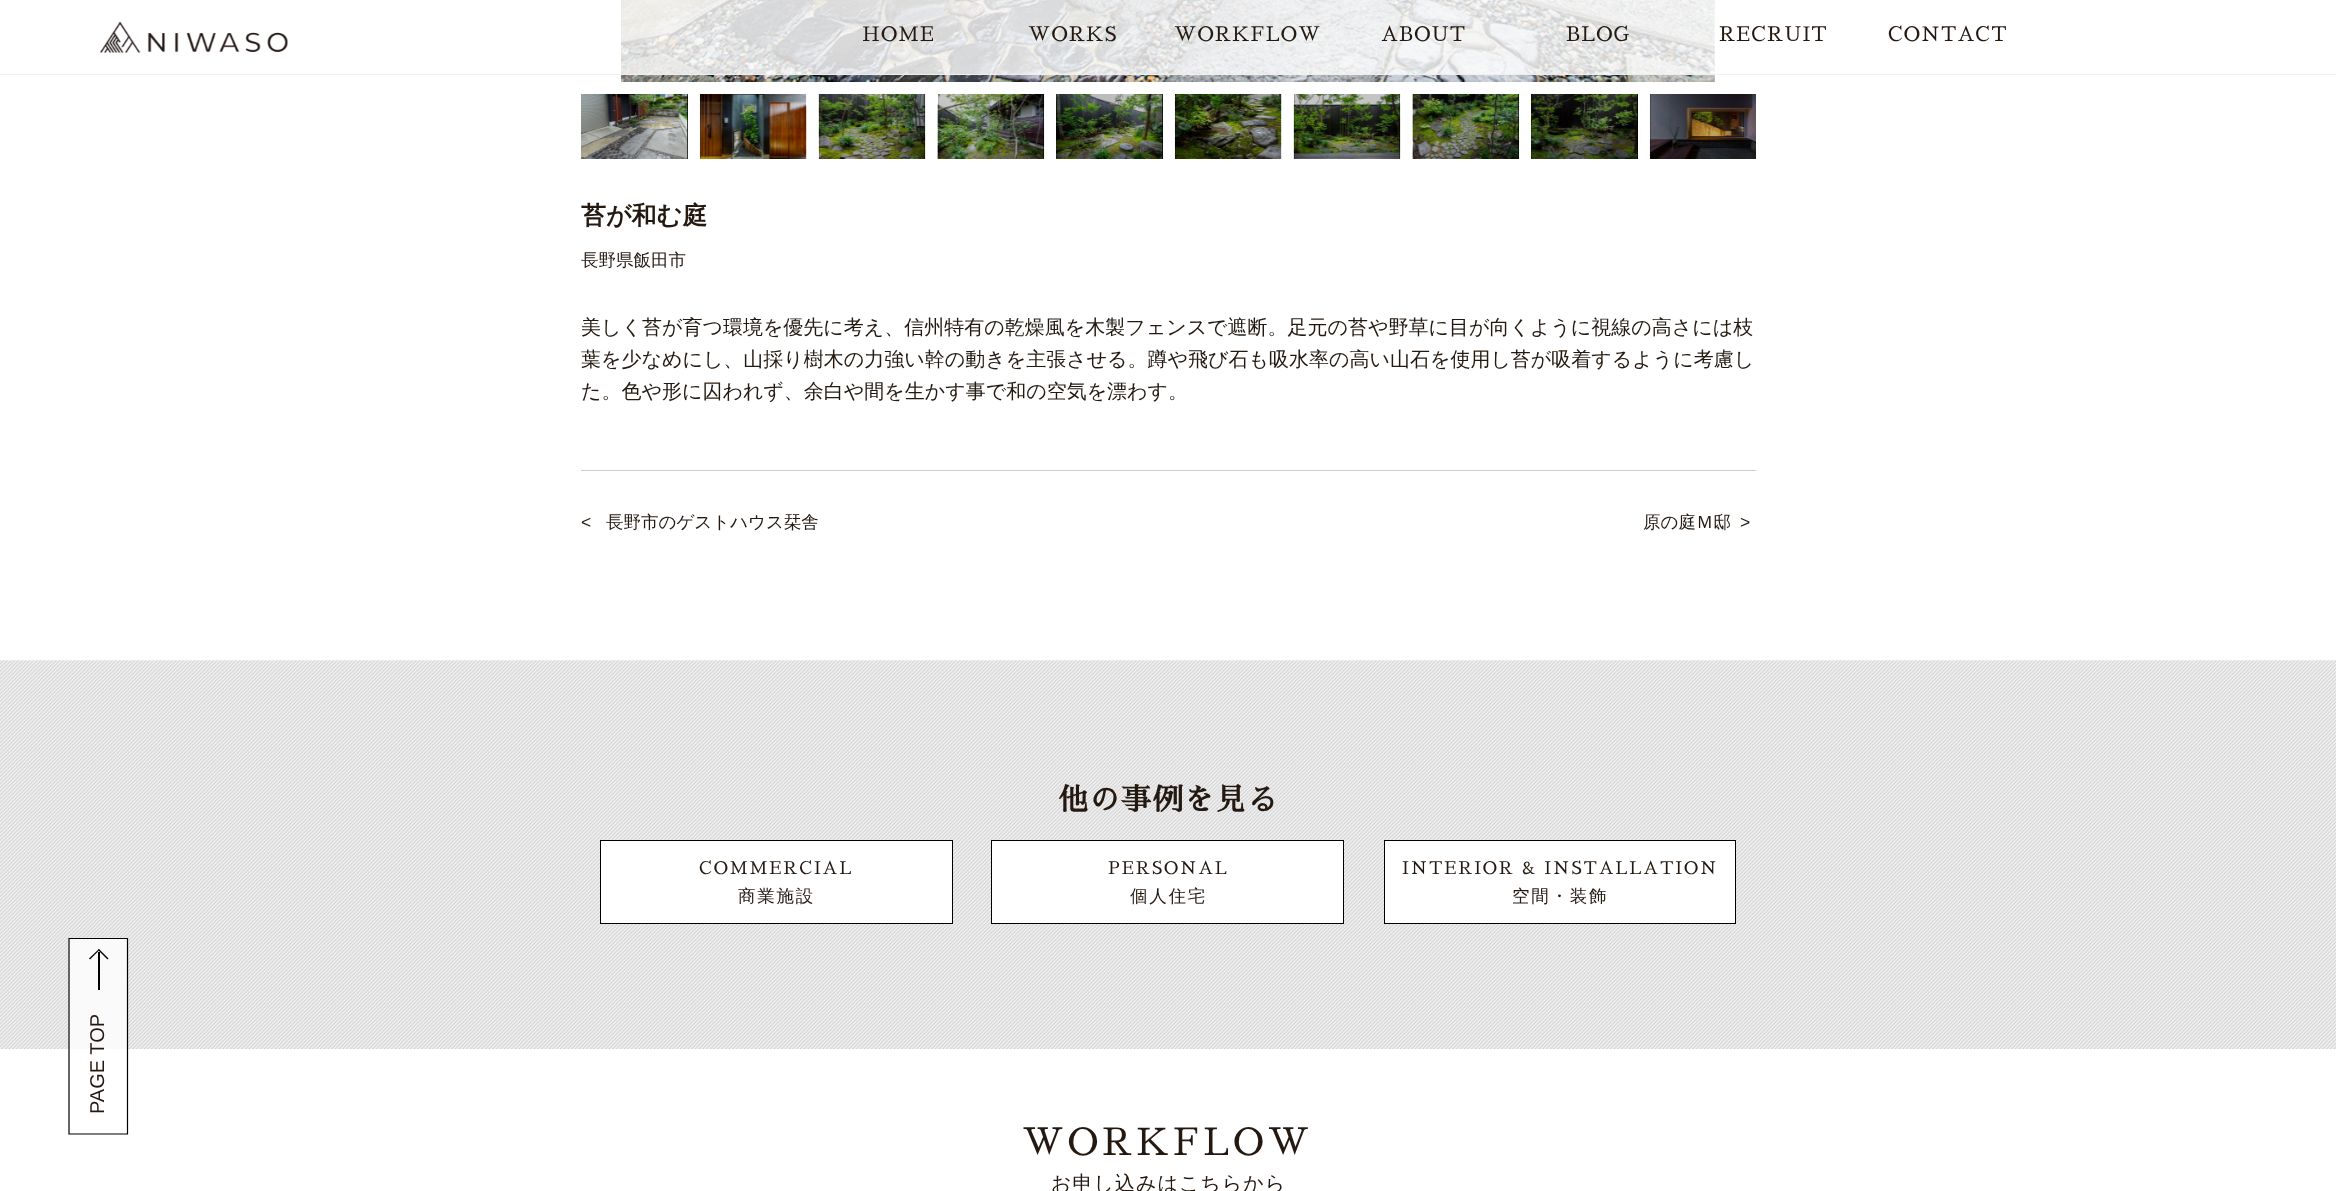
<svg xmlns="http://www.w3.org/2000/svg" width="2336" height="1191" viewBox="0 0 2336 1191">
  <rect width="100%" height="100%" fill="#ffffff"/>
  <image x="621" y="0" width="1094" height="82" href="img2.png"/>
  <rect x="0" y="74" width="2336" height="1" fill="#efefef"/>
  <image x="99" y="21" width="189" height="32" href="img1.png"/>
  <text x="862" y="41" font-family="Sawarabi Mincho" font-size="20" letter-spacing="1" fill="#231910">HOME</text>
  <text x="1028" y="41" font-family="Sawarabi Mincho" font-size="20" letter-spacing="1" fill="#231910">WORKS</text>
  <text x="1174" y="41" font-family="Sawarabi Mincho" font-size="20" letter-spacing="1" fill="#231910">WORKFLOW</text>
  <text x="1381" y="41" font-family="Sawarabi Mincho" font-size="20" letter-spacing="1" fill="#231910">ABOUT</text>
  <text x="1566" y="41" font-family="Sawarabi Mincho" font-size="20" letter-spacing="1" fill="#231910">BLOG</text>
  <text x="1719" y="41" font-family="Sawarabi Mincho" font-size="20" letter-spacing="1" fill="#231910">RECRUIT</text>
  <text x="1888" y="41" font-family="Sawarabi Mincho" font-size="20" letter-spacing="1" fill="#231910">CONTACT</text>
  <image x="0" y="660" width="2336" height="389" href="img13.png"/>
  <rect x="68" y="938" width="59" height="111" fill="#ffffff" fill-opacity="0.8"/>
  <path d="M69 1134V938.5H127.5V1134Z" fill="none" stroke="#000000" stroke-width="1.2"/>
  <path d="M90 959.5L89 958.5L99 949L99.5 950Z" fill="#000000"/>
  <path d="M107.5 959.5L98 950L99 949L108.5 958.5Z" fill="#000000"/>
  <rect x="98" y="952" width="2" height="38" fill="#000000"/>
  <text x="104" y="1114" transform="rotate(-90 104 1114)" font-family="Liberation Sans" font-size="20" fill="#231910">PAGE TOP</text>
  <rect x="687" y="94" width="1" height="65" fill="#000000"/>
  <image x="581" y="94" width="107" height="65" href="img3.png"/>
  <rect x="700" y="94" width="106" height="65" fill="#000000"/>
  <image x="699" y="94" width="108" height="65" href="img4.png"/>
  <rect x="819" y="94" width="106" height="65" fill="#000000"/>
  <image x="818" y="94" width="108" height="65" href="img5.png"/>
  <rect x="938" y="94" width="106" height="65" fill="#000000"/>
  <image x="937" y="94" width="108" height="65" href="img6.png"/>
  <rect x="1056" y="94" width="107" height="65" fill="#000000"/>
  <image x="1056" y="94" width="107" height="65" href="img7.png"/>
  <rect x="1175" y="94" width="106" height="65" fill="#000000"/>
  <image x="1174" y="94" width="108" height="65" href="img8.png"/>
  <rect x="1294" y="94" width="106" height="65" fill="#000000"/>
  <image x="1293" y="94" width="108" height="65" href="img9.png"/>
  <rect x="1413" y="94" width="106" height="65" fill="#000000"/>
  <image x="1412" y="94" width="108" height="65" href="img10.png"/>
  <rect x="1531" y="94" width="107" height="65" fill="#000000"/>
  <image x="1531" y="94" width="107" height="65" href="img11.png"/>
  <rect x="1650" y="94" width="106" height="65" fill="#000000"/>
  <image x="1649" y="94" width="107" height="65" href="img12.png"/>
  <rect x="581" y="470" width="1175" height="1" fill="#cccccc"/>
  <text x="581" y="224" font-family="WenQuanYi Zen Hei" font-size="25" font-weight="bold" fill="#231910">苔が和む庭</text>
  <text x="581" y="266" font-family="WenQuanYi Zen Hei" font-size="17.5" font-weight="500" fill="#231910">長野県飯田市</text>
  <text x="581" y="334" font-family="WenQuanYi Zen Hei" font-size="20" font-weight="500" fill="#231910">美しく苔が育つ環境を優先に考え、信州特有の乾燥風を木製フェンスで遮断。足元の苔や野草に目が向くように視線の高さには枝</text>
  <text x="581" y="366" font-family="WenQuanYi Zen Hei" font-size="20" font-weight="500" fill="#231910">葉を少なめにし、山採り樹木の力強い幹の動きを主張させる。蹲や飛び石も吸水率の高い山石を使用し苔が吸着するように考慮し</text>
  <text x="581" y="398" font-family="WenQuanYi Zen Hei" font-size="20" font-weight="500" fill="#231910">た。色や形に囚われず、余白や間を生かす事で和の空気を漂わす。</text>
  <text x="581" y="528" font-family="Liberation Sans" font-size="17.5" fill="#231910">&lt;</text>
  <text x="606" y="528" font-family="WenQuanYi Zen Hei" font-size="17.5" font-weight="500" fill="#231910">長野市のゲストハウス栞舎</text>
  <text x="1643" y="528" font-family="WenQuanYi Zen Hei" font-size="17.5" font-weight="500" fill="#231910">原の庭Ｍ邸</text>
  <text x="1740" y="528" font-family="Liberation Sans" font-size="17.5" fill="#231910">&gt;</text>
  <text x="1058" y="810" font-family="Sawarabi Mincho" font-size="30" font-weight="bold" letter-spacing="1.5" fill="#231910">他の事例を見る</text>
  <rect x="600.5" y="840.5" width="352" height="83" fill="#ffffff" stroke="#000000"/>
  <text x="699" y="874" font-family="Sawarabi Mincho" font-size="17.5" letter-spacing="1.75" fill="#231910">COMMERCIAL</text>
  <text x="738" y="902" font-family="WenQuanYi Zen Hei" font-size="17.5" font-weight="500" letter-spacing="1.75" fill="#231910">商業施設</text>
  <rect x="991.5" y="840.5" width="352" height="83" fill="#ffffff" stroke="#000000"/>
  <text x="1108" y="874" font-family="Sawarabi Mincho" font-size="17.5" letter-spacing="1.75" fill="#231910">PERSONAL</text>
  <text x="1130" y="902" font-family="WenQuanYi Zen Hei" font-size="17.5" font-weight="500" letter-spacing="1.75" fill="#231910">個人住宅</text>
  <rect x="1384.5" y="840.5" width="351" height="83" fill="#ffffff" stroke="#000000"/>
  <text x="1402" y="874" font-family="Sawarabi Mincho" font-size="17.5" letter-spacing="1.75" fill="#231910">INTERIOR &amp; INSTALLATION</text>
  <text x="1512" y="902" font-family="WenQuanYi Zen Hei" font-size="17.5" font-weight="500" letter-spacing="1.75" fill="#231910">空間・装飾</text>
  <text x="1022" y="1155" font-family="Sawarabi Mincho" font-size="37.5" letter-spacing="3.75" fill="#231910">WORKFLOW</text>
  <text x="1051" y="1190" font-family="WenQuanYi Zen Hei" font-size="20" font-weight="500" letter-spacing="1" fill="#231910">お申し込みはこちらから</text>
</svg>
